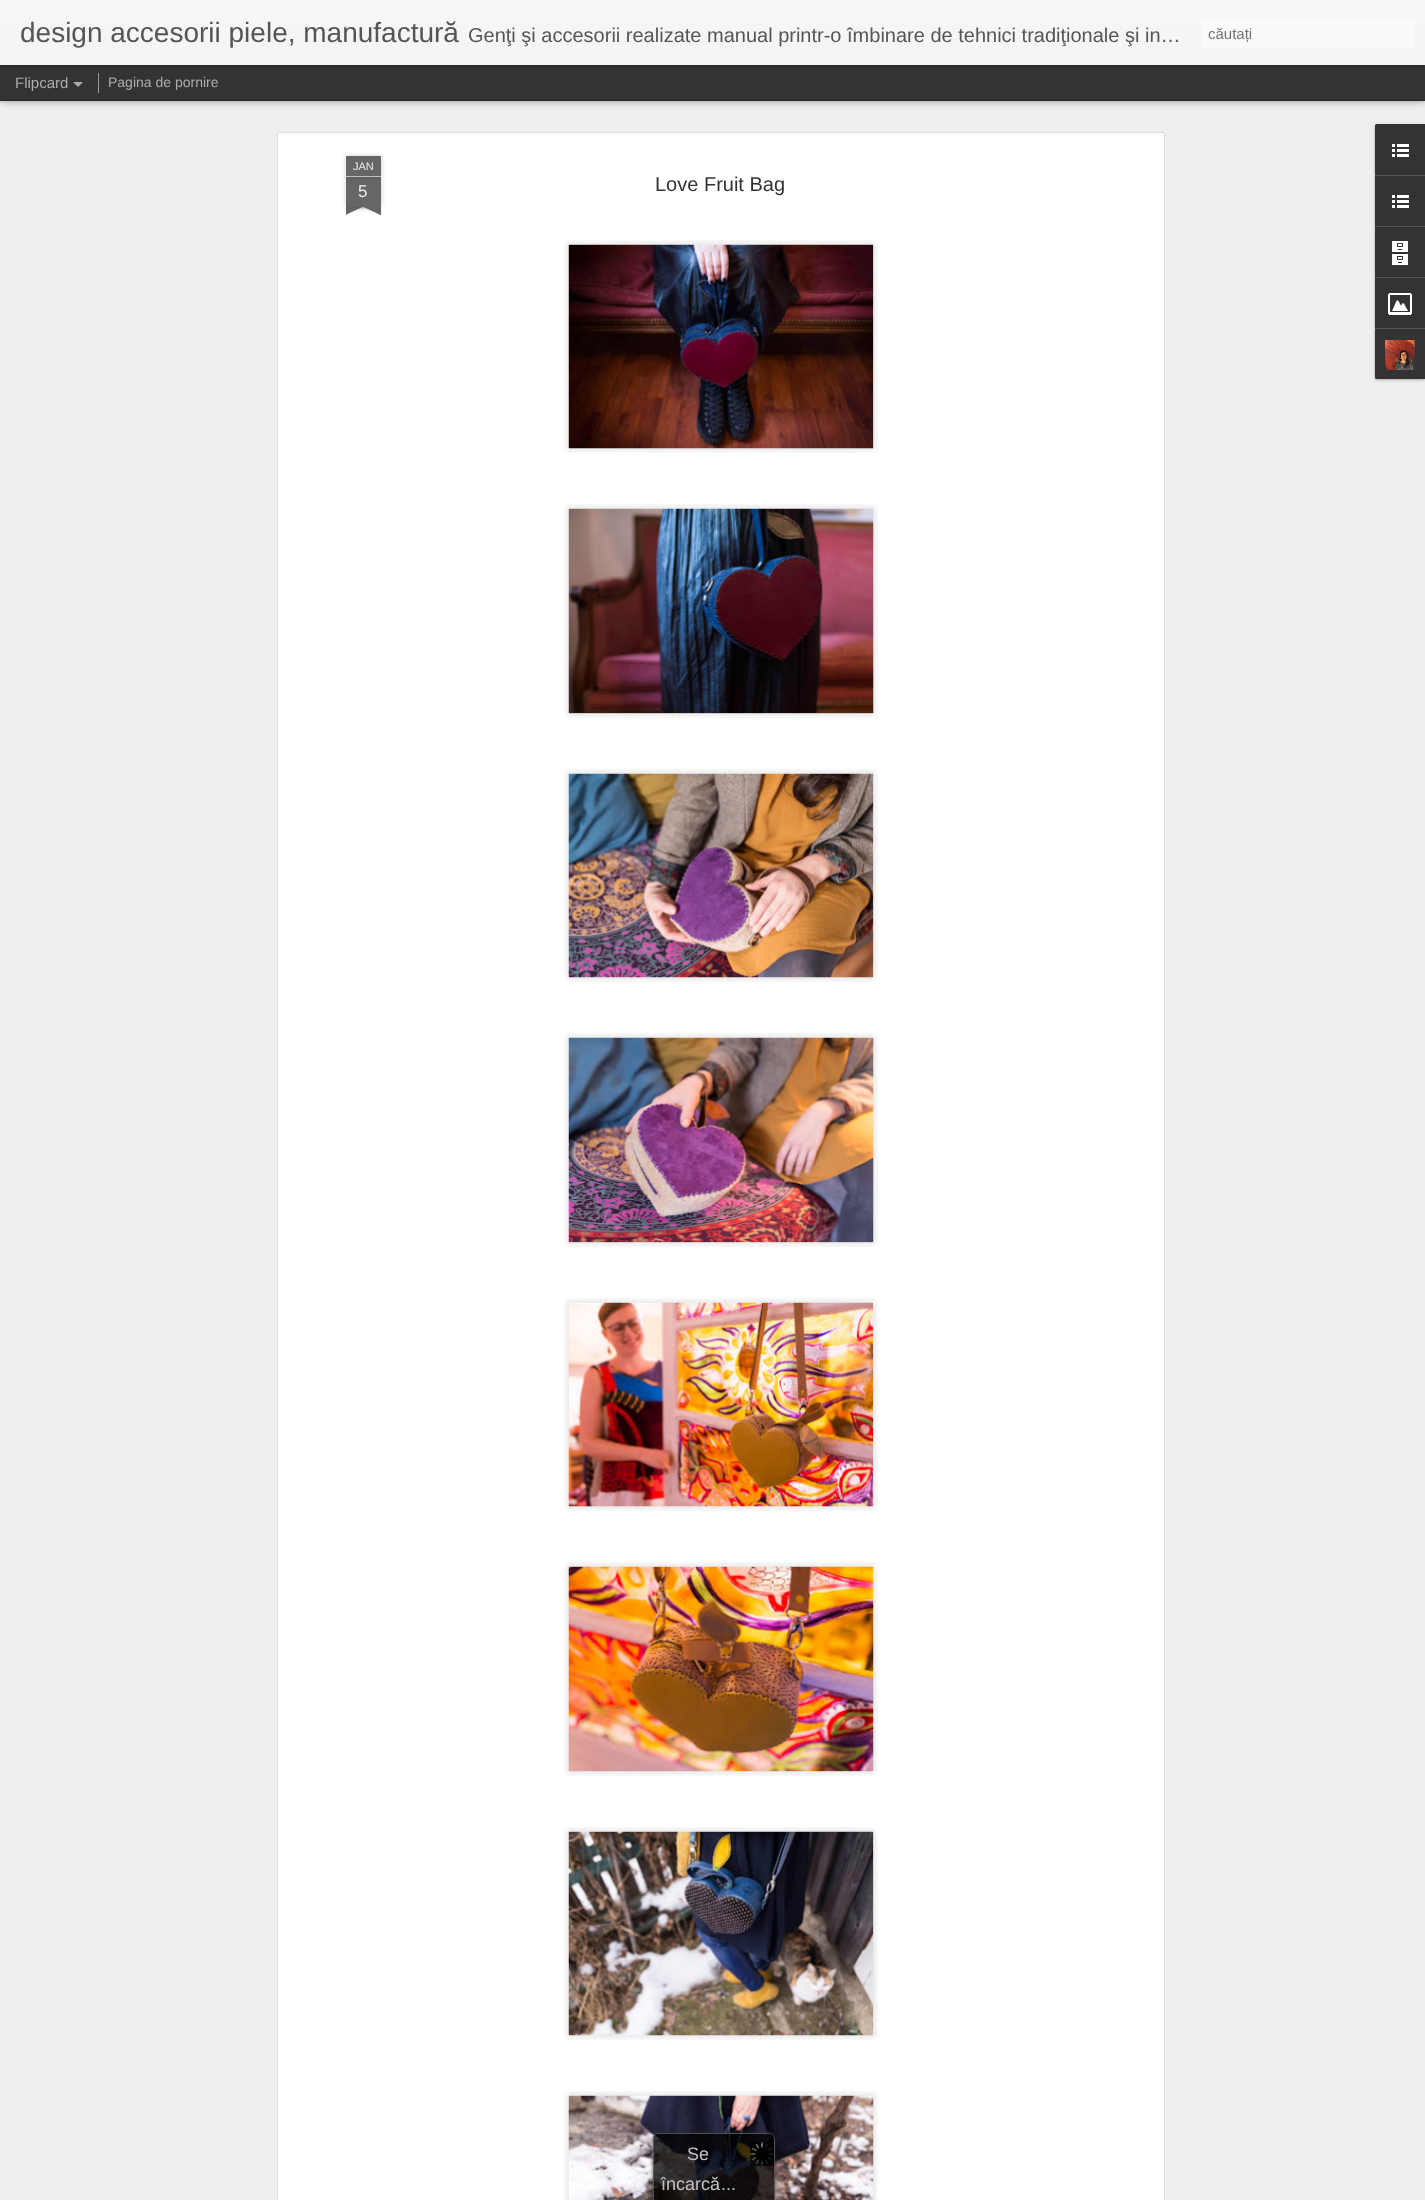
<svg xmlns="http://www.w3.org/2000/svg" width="1425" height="2200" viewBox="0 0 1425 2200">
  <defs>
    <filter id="blur1" x="-50%" y="-200%" width="200%" height="500%"><feGaussianBlur stdDeviation="4"/></filter>
    <filter id="blur2" x="-50%" y="-200%" width="200%" height="500%"><feGaussianBlur stdDeviation="2.5"/></filter>
    <linearGradient id="g1" gradientUnits="userSpaceOnUse" x1="0" y1="0" x2="0" y2="65"><stop offset="0" stop-color="#f7f7f7"/><stop offset="1" stop-color="#f4f4f4"/></linearGradient>
    <clipPath id="clip1"><rect x="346" y="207" width="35" height="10"/></clipPath>
    <clipPath id="clip2"><rect x="346" y="207" width="35" height="10"/></clipPath>
    <filter id="blur3" x="-50%" y="-200%" width="200%" height="500%"><feGaussianBlur stdDeviation="1.5"/></filter>
    <clipPath id="clip3"><path d="M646 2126H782V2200H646ZM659 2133H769C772.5 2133 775 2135.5 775 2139V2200H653V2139C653 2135.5 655.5 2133 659 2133Z" clip-rule="evenodd"/></clipPath>
    <filter id="blur4" x="-50%" y="-200%" width="200%" height="500%"><feGaussianBlur stdDeviation="2"/></filter>
  </defs>
  <rect width="100%" height="100%" fill="#333333"/>
  <rect x="0" y="101" width="1425" height="2099" fill="#eeeeee"/>
  <rect x="0" y="65" width="1425" height="35" fill="#000000" fill-opacity="0.5" filter="url(#blur1)"/>
  <rect x="0" y="65" width="1425" height="35" fill="#333333"/>
  <rect x="98" y="73" width="1" height="20" fill="#999999"/>
  <rect x="0" y="0" width="1425" height="65" fill="#000000" fill-opacity="0.3" filter="url(#blur2)"/>
  <rect x="0" y="0" width="1425" height="65" fill="url(#g1)"/>
  <text x="20" y="42" font-family="Liberation Sans" font-size="28" fill="#555555">design accesorii piele, manufactură</text>
  <text x="468" y="42" font-family="Liberation Sans" font-size="20" fill="#555555">Genţi şi accesorii realizate manual printr-o îmbinare de tehnici tradiţionale şi in…</text>
  <rect x="1201" y="18" width="214" height="30" rx="3" fill="#fafafa"/>
  <text x="1208" y="39" font-family="Liberation Sans" font-size="15" fill="#757575">căutați</text>
  <text x="15" y="88" font-family="Liberation Sans" font-size="15" fill="#adadad">Flipcard</text>
  <path d="M73 82H83L78 87Z" fill="#adadad"/>
  <text x="108" y="87" font-family="Liberation Sans" font-size="14" fill="#adadad">Pagina de pornire</text>
  <rect x="276" y="131" width="890" height="2069" fill="#ffffff"/>
  <image x="276" y="131" width="890" height="2069" href="img1.png"/>
  <rect x="346" y="177" width="35" height="30" fill="#000000" fill-opacity="0.2" filter="url(#blur2)"/>
  <rect x="346" y="177" width="35" height="30" fill="#666666"/>
  <rect x="346" y="156" width="35" height="21" rx="1" fill="#000000" fill-opacity="0.2" filter="url(#blur2)"/>
  <path d="M347 156H380C380.5 156 381 156.5 381 157V177H346V157C346 156.5 346.5 156 347 156Z" fill="#666666"/>
  <rect x="346" y="176" width="35" height="1" fill="#c2c2c2"/>
  <text x="353" y="170" font-family="Liberation Sans" font-size="11" fill="#eeeeee">JAN</text>
  <text x="358" y="197" font-family="Liberation Sans" font-size="17" fill="#eeeeee">5</text>
  <g clip-path="url(#clip1)">
    <rect x="337" y="197" width="50" height="10" fill="#000000" fill-opacity="0.2" filter="url(#blur2)"/>
  </g>
  <g clip-path="url(#clip2)">
    <path d="M337 208L382 187L386 196L341 217Z" fill="#666666"/>
  </g>
  <g clip-path="url(#clip1)">
    <rect x="340" y="197" width="50" height="10" fill="#000000" fill-opacity="0.2" filter="url(#blur2)"/>
  </g>
  <g clip-path="url(#clip2)">
    <path d="M344 187L389 208L385 217L340 196Z" fill="#666666"/>
  </g>
  <text x="655" y="191" font-family="Liberation Sans" font-size="20" fill="#333333">Love Fruit Bag</text>
  <image x="564" y="240" width="314" height="213" href="img2.png"/>
  <image x="568" y="244" width="306" height="205" href="img3.png"/>
  <image x="564" y="504" width="314" height="214" href="img4.png"/>
  <image x="568" y="508" width="306" height="206" href="img5.png"/>
  <image x="564" y="769" width="314" height="213" href="img6.png"/>
  <image x="568" y="773" width="306" height="205" href="img7.png"/>
  <image x="564" y="1033" width="314" height="214" href="img8.png"/>
  <image x="568" y="1037" width="306" height="206" href="img9.png"/>
  <image x="564" y="1298" width="314" height="213" href="img10.png"/>
  <image x="568" y="1302" width="306" height="205" href="img11.png"/>
  <image x="564" y="1562" width="314" height="214" href="img12.png"/>
  <image x="568" y="1566" width="306" height="206" href="img13.png"/>
  <image x="564" y="1827" width="314" height="213" href="img14.png"/>
  <image x="568" y="1831" width="306" height="205" href="img15.png"/>
  <image x="564" y="2091" width="314" height="109" href="img16.png"/>
  <image x="568" y="2095" width="306" height="105" href="img17.png"/>
  <rect x="1375" y="125" width="50" height="255" rx="2" fill="#000000" fill-opacity="0.3" filter="url(#blur3)"/>
  <path d="M1377 124H1425V379H1377C1376 379 1375 378 1375 377V126C1375 125 1376 124 1377 124Z" fill="#333333"/>
  <path d="M1377 124H1425V175H1375V126C1375 125 1376 124 1377 124Z" fill="#333333"/>
  <image x="1392" y="144" width="17" height="13" href="img18.png"/>
  <rect x="1375" y="175" width="50" height="1" fill="#585858"/>
  <image x="1392" y="195" width="17" height="13" href="img18.png"/>
  <rect x="1375" y="226" width="50" height="1" fill="#585858"/>
  <image x="1392" y="241" width="16" height="24" href="img19.png"/>
  <rect x="1375" y="277" width="50" height="1" fill="#585858"/>
  <image x="1388" y="293" width="24" height="22" href="img20.png"/>
  <path d="M1375 328H1425V379H1377C1376 379 1375 378 1375 377Z" fill="#333333"/>
  <rect x="1375" y="328" width="50" height="1" fill="#585858"/>
  <image x="1385" y="340" width="30" height="30" href="img21.png"/>
  <g clip-path="url(#clip3)">
    <rect x="653" y="2133" width="122" height="67" rx="6" fill="#333333" fill-opacity="0.75" filter="url(#blur4)"/>
  </g>
  <path d="M659 2133H769C772.5 2133 775 2135.5 775 2139V2200H653V2139C653 2135.5 655.5 2133 659 2133Z" fill="#000000" fill-opacity="0.75"/>
  <path d="M659 2133H769C772 2133 775 2136 775 2139V2200H653V2139C653 2136 656 2133 659 2133ZM659 2134H769C772 2134 774 2136 774 2139V2200H654V2139C654 2136 656 2134 659 2134Z" fill="#666666" fill-opacity="0.75" fill-rule="evenodd"/>
  <image x="750" y="2142" width="24" height="24" href="img22.png"/>
  <text x="687" y="2160" font-family="Liberation Sans" font-size="18" fill="#c2c2c3">Se</text>
  <text x="661" y="2190" font-family="Liberation Sans" font-size="18" fill="#c2c2c3">încarcă</text>
  <text x="721" y="2190" font-family="Liberation Sans" font-size="18" fill="#c2c2c3">...</text>
</svg>
